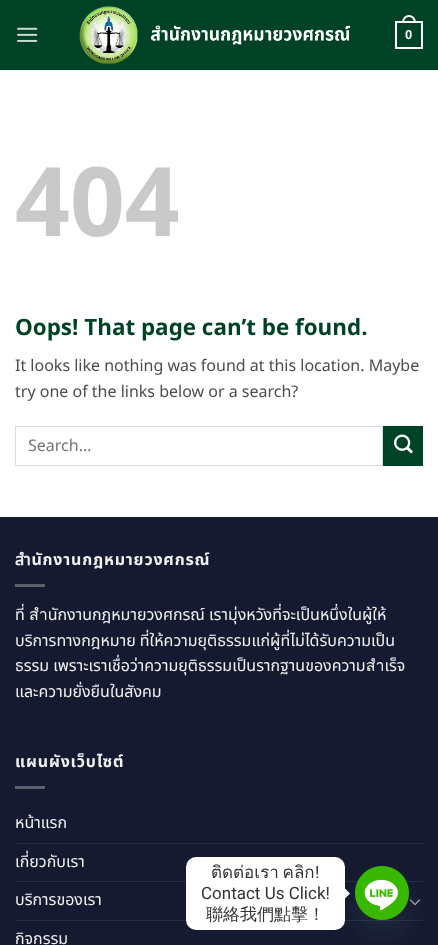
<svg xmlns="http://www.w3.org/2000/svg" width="438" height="945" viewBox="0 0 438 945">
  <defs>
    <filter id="blur1" x="-50%" y="-200%" width="200%" height="500%"><feGaussianBlur stdDeviation="12"/></filter>
  </defs>
  <rect width="100%" height="100%" fill="#ffffff"/>
  <rect x="0" y="0" width="438" height="70" fill="#004225"/>
  <image x="17" y="27" width="21" height="15" href="img1.png"/>
  <image x="79" y="6" width="272" height="58" href="img2.png"/>
  <rect x="396" y="22" width="26" height="26" fill="none" stroke="#ffffff" stroke-width="2"/>
  <path d="M409 15C413.5 15 416 19 416 23H402C402 19 404.5 15 409 15ZM409 17C412.5 17 414 20 414 23H404C404 20 405.5 17 409 17Z" fill="#ffffff" fill-rule="evenodd"/>
  <text x="405" y="39" font-family="Liberation Sans" font-size="13" font-weight="bold" fill="#ffffff">0</text>
  <text x="15" y="236" font-family="Noto Sans Thai" font-size="96" font-weight="bold" fill="#c9c9c9">404</text>
  <text x="15" y="335" font-family="Noto Sans Thai" font-size="22.4" font-weight="bold" fill="#004225">Oops! That page can’t be found.</text>
  <text x="15" y="371" font-family="Noto Sans Thai" font-size="16" fill="#4c4c4c">It looks like nothing was found at this location. Maybe</text>
  <text x="15" y="397" font-family="Noto Sans Thai" font-size="16" fill="#4c4c4c">try one of the links below or a search?</text>
  <rect x="15.5" y="426.5" width="367" height="39" fill="none" stroke="#dddddd"/>
  <text x="28" y="451" font-family="Noto Sans Thai" font-size="16" fill="#757575">Search…</text>
  <rect x="383.5" y="426.5" width="39" height="39" fill="#004225" stroke="#003f23"/>
  <image x="394" y="434" width="19" height="20" href="img3.png"/>
  <rect x="0" y="518" width="438" height="427" fill="#151a30"/>
  <rect x="0" y="517" width="438" height="1" fill="#14192e"/>
  <text x="15" y="565" font-family="Noto Sans Thai" font-size="16" font-weight="bold" letter-spacing="0.8" fill="#f1f1f1">สำนักงานกฎหมายวงศกรณ์</text>
  <rect x="15" y="584" width="30" height="3" fill="#5b5f6e"/>
  <text x="15" y="620" font-family="Noto Sans Thai" font-size="16" fill="#f1f1f1">ที่ สำนักงานกฎหมายวงศกรณ์ เรามุ่งหวังที่จะเป็นหนึ่งในผู้ให้</text>
  <text x="15" y="646" font-family="Noto Sans Thai" font-size="16" fill="#f1f1f1">บริการทางกฎหมาย ที่ให้ความยุติธรรมแก่ผู้ที่ไม่ได้รับความเป็น</text>
  <text x="15" y="671" font-family="Noto Sans Thai" font-size="16" fill="#f1f1f1">ธรรม เพราะเราเชื่อว่าความยุติธรรมเป็นรากฐานของความสำเร็จ</text>
  <text x="15" y="697" font-family="Noto Sans Thai" font-size="16" fill="#f1f1f1">และความยั่งยืนในสังคม</text>
  <text x="15" y="767" font-family="Noto Sans Thai" font-size="16" font-weight="bold" letter-spacing="0.8" fill="#f1f1f1">แผนผังเว็บไซต์</text>
  <rect x="15" y="786" width="30" height="3" fill="#5b5f6e"/>
  <text x="15" y="828" font-family="Noto Sans Thai" font-size="16" fill="#f1f1f1">หน้าแรก</text>
  <rect x="15" y="843" width="408" height="1" fill="#282c41"/>
  <text x="15" y="867" font-family="Noto Sans Thai" font-size="16" fill="#f1f1f1">เกี่ยวกับเรา</text>
  <rect x="15" y="881" width="408" height="1" fill="#282c41"/>
  <text x="15" y="905" font-family="Noto Sans Thai" font-size="16" fill="#f1f1f1">บริการของเรา</text>
  <image x="409" y="899" width="12" height="7" href="img4.png"/>
  <rect x="15" y="920" width="408" height="1" fill="#282c41"/>
  <text x="15" y="944" font-family="Noto Sans Thai" font-size="16" fill="#f1f1f1">กิจกรรม</text>
  <rect x="355" y="882" width="54" height="54" rx="27" fill="#49687e" fill-opacity="0.16" filter="url(#blur1)"/>
  <rect x="186" y="857" width="159" height="73" rx="10" fill="#ffffff"/>
  <text x="211" y="878" word-spacing="-2" font-family="Loma" font-size="17" fill="#333333">ติดต่อเรา คลิก</text>
  <text x="315" y="878" font-family="Roboto" font-size="17" fill="#333333">!</text>
  <text x="201" y="899" font-family="Roboto" font-size="17" fill="#333333">Contact Us Click!</text>
  <path d="M345 898.5V888.5L350 893.5Z" fill="#ffffff"/>
  <text x="206" y="920" font-family="WenQuanYi Zen Hei" font-size="17" font-weight="500" fill="#333333">聯絡我們點擊！</text>
  <image x="355" y="866" width="54" height="54" href="img5.png"/>
</svg>
